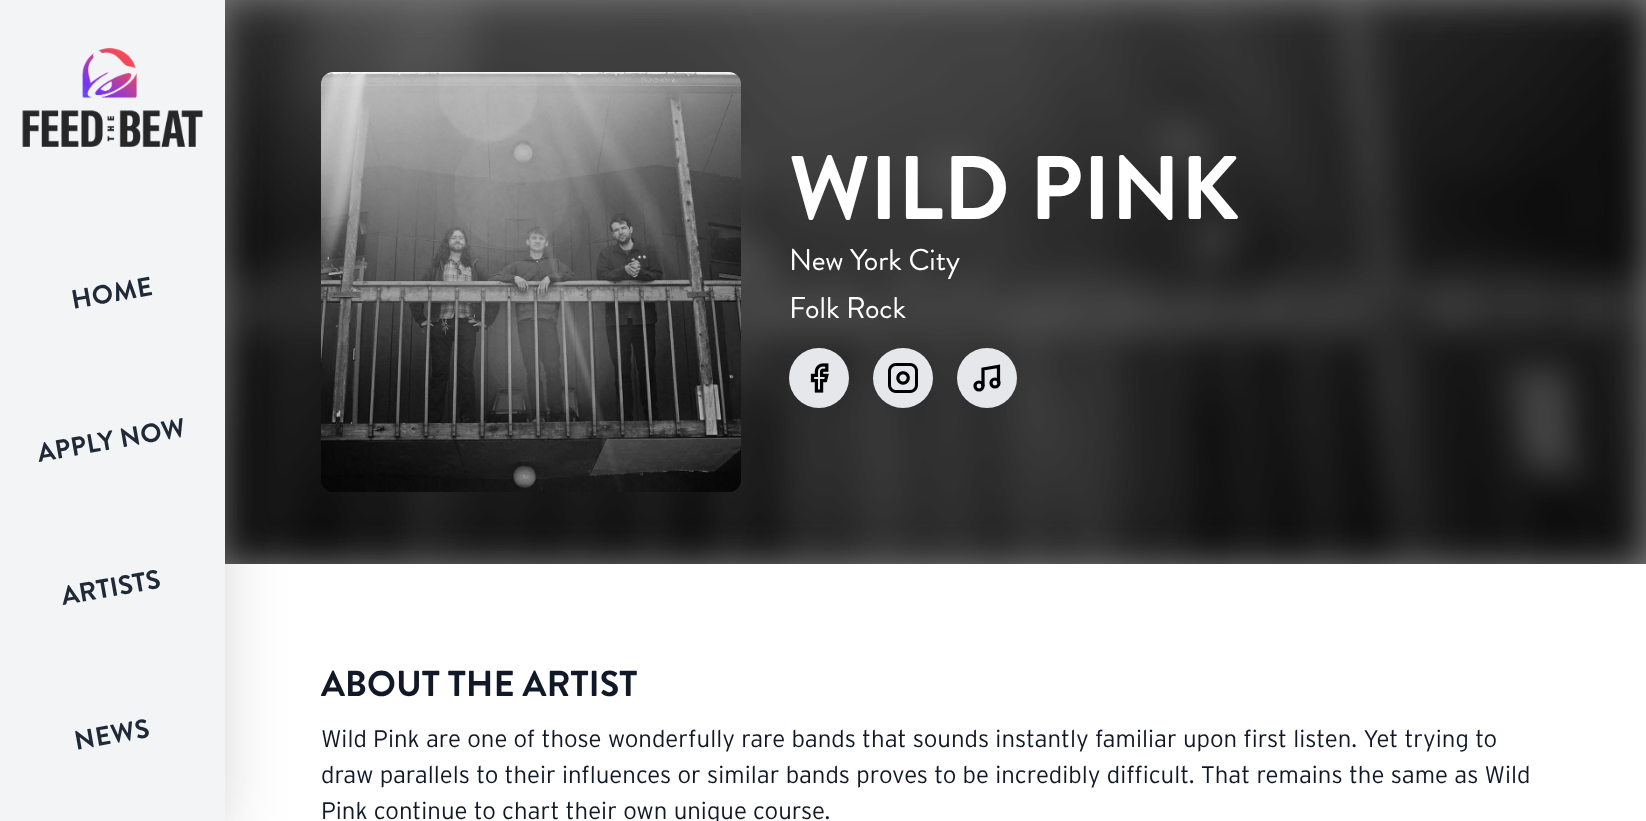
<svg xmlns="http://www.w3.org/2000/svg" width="1646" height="821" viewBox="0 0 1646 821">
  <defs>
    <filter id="blur1" x="-50%" y="-200%" width="200%" height="500%"><feGaussianBlur stdDeviation="37.5"/></filter>
  </defs>
  <rect width="100%" height="100%" fill="#ffffff"/>
  <rect x="225" y="0" width="1421" height="564" fill="#7a7a7b"/>
  <image x="225" y="0" width="1421" height="564" href="img2.png"/>
  <rect x="18" y="56" width="189" height="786" fill="#000000" fill-opacity="0.25" filter="url(#blur1)"/>
  <rect x="0" y="0" width="225" height="821" fill="#f3f4f6"/>
  <image x="22" y="48" width="181" height="99" href="img1.png"/>
  <text x="73" y="309" transform="rotate(-10 73 309)" font-family="Brandon Grotesque" font-size="26.5" font-weight="bold" letter-spacing="0.5" fill="#1f2937">HOME</text>
  <text x="39" y="462" transform="rotate(-10 39 462)" font-family="Brandon Grotesque" font-size="26.5" font-weight="bold" letter-spacing="0.25" fill="#1f2937">APPLY NOW</text>
  <text x="63" y="605" transform="rotate(-10 63 605)" font-family="Brandon Grotesque" font-size="26.5" font-weight="bold" letter-spacing="0.25" fill="#1f2937">ARTISTS</text>
  <text x="76" y="750" transform="rotate(-10 76 750)" font-family="Brandon Grotesque" font-size="26.5" font-weight="bold" letter-spacing="0.5" fill="#1f2937">NEWS</text>
  <image x="321" y="72" width="420" height="420" href="img3.png"/>
  <text x="789" y="219" font-family="Brandon Grotesque" font-size="90" font-weight="bold" fill="#ffffff">WILD PINK</text>
  <text x="789" y="270" font-family="Brandon Grotesque" font-size="30" fill="#ffffff">New York City</text>
  <text x="789" y="318" font-family="Brandon Grotesque" font-size="30" fill="#ffffff">Folk Rock</text>
  <circle cx="819" cy="378" r="30" fill="#e5e7eb"/>
  <image x="810" y="363" width="19" height="30" href="img4.png"/>
  <circle cx="903" cy="378" r="30" fill="#e5e7eb"/>
  <image x="888" y="363" width="30" height="30" href="img5.png"/>
  <circle cx="987" cy="378" r="30" fill="#e5e7eb"/>
  <path d="M983 386V369L998.5 366.5V383" fill="none" stroke="#000000" stroke-width="3.2"/>
  <circle cx="979" cy="386" r="4" fill="none" stroke="#000000" stroke-width="3.2"/>
  <circle cx="995" cy="383" r="4" fill="none" stroke="#000000" stroke-width="3.2"/>
  <text x="321" y="696" font-family="Brandon Grotesque" font-size="36" font-weight="bold" fill="#111827">ABOUT THE ARTIST</text>
  <text x="321" y="747" font-family="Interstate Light" font-size="24" font-weight="300" fill="#111827">Wild Pink are one of those wonderfully rare bands that sounds instantly familiar upon first listen. Yet trying to</text>
  <text x="321" y="783" font-family="Interstate Light" font-size="24" font-weight="300" fill="#111827">draw parallels to their influences or similar bands proves to be incredibly difficult. That remains the same as Wild</text>
  <text x="321" y="819" font-family="Interstate Light" font-size="24" font-weight="300" fill="#111827">Pink continue to chart their own unique course.</text>
</svg>
